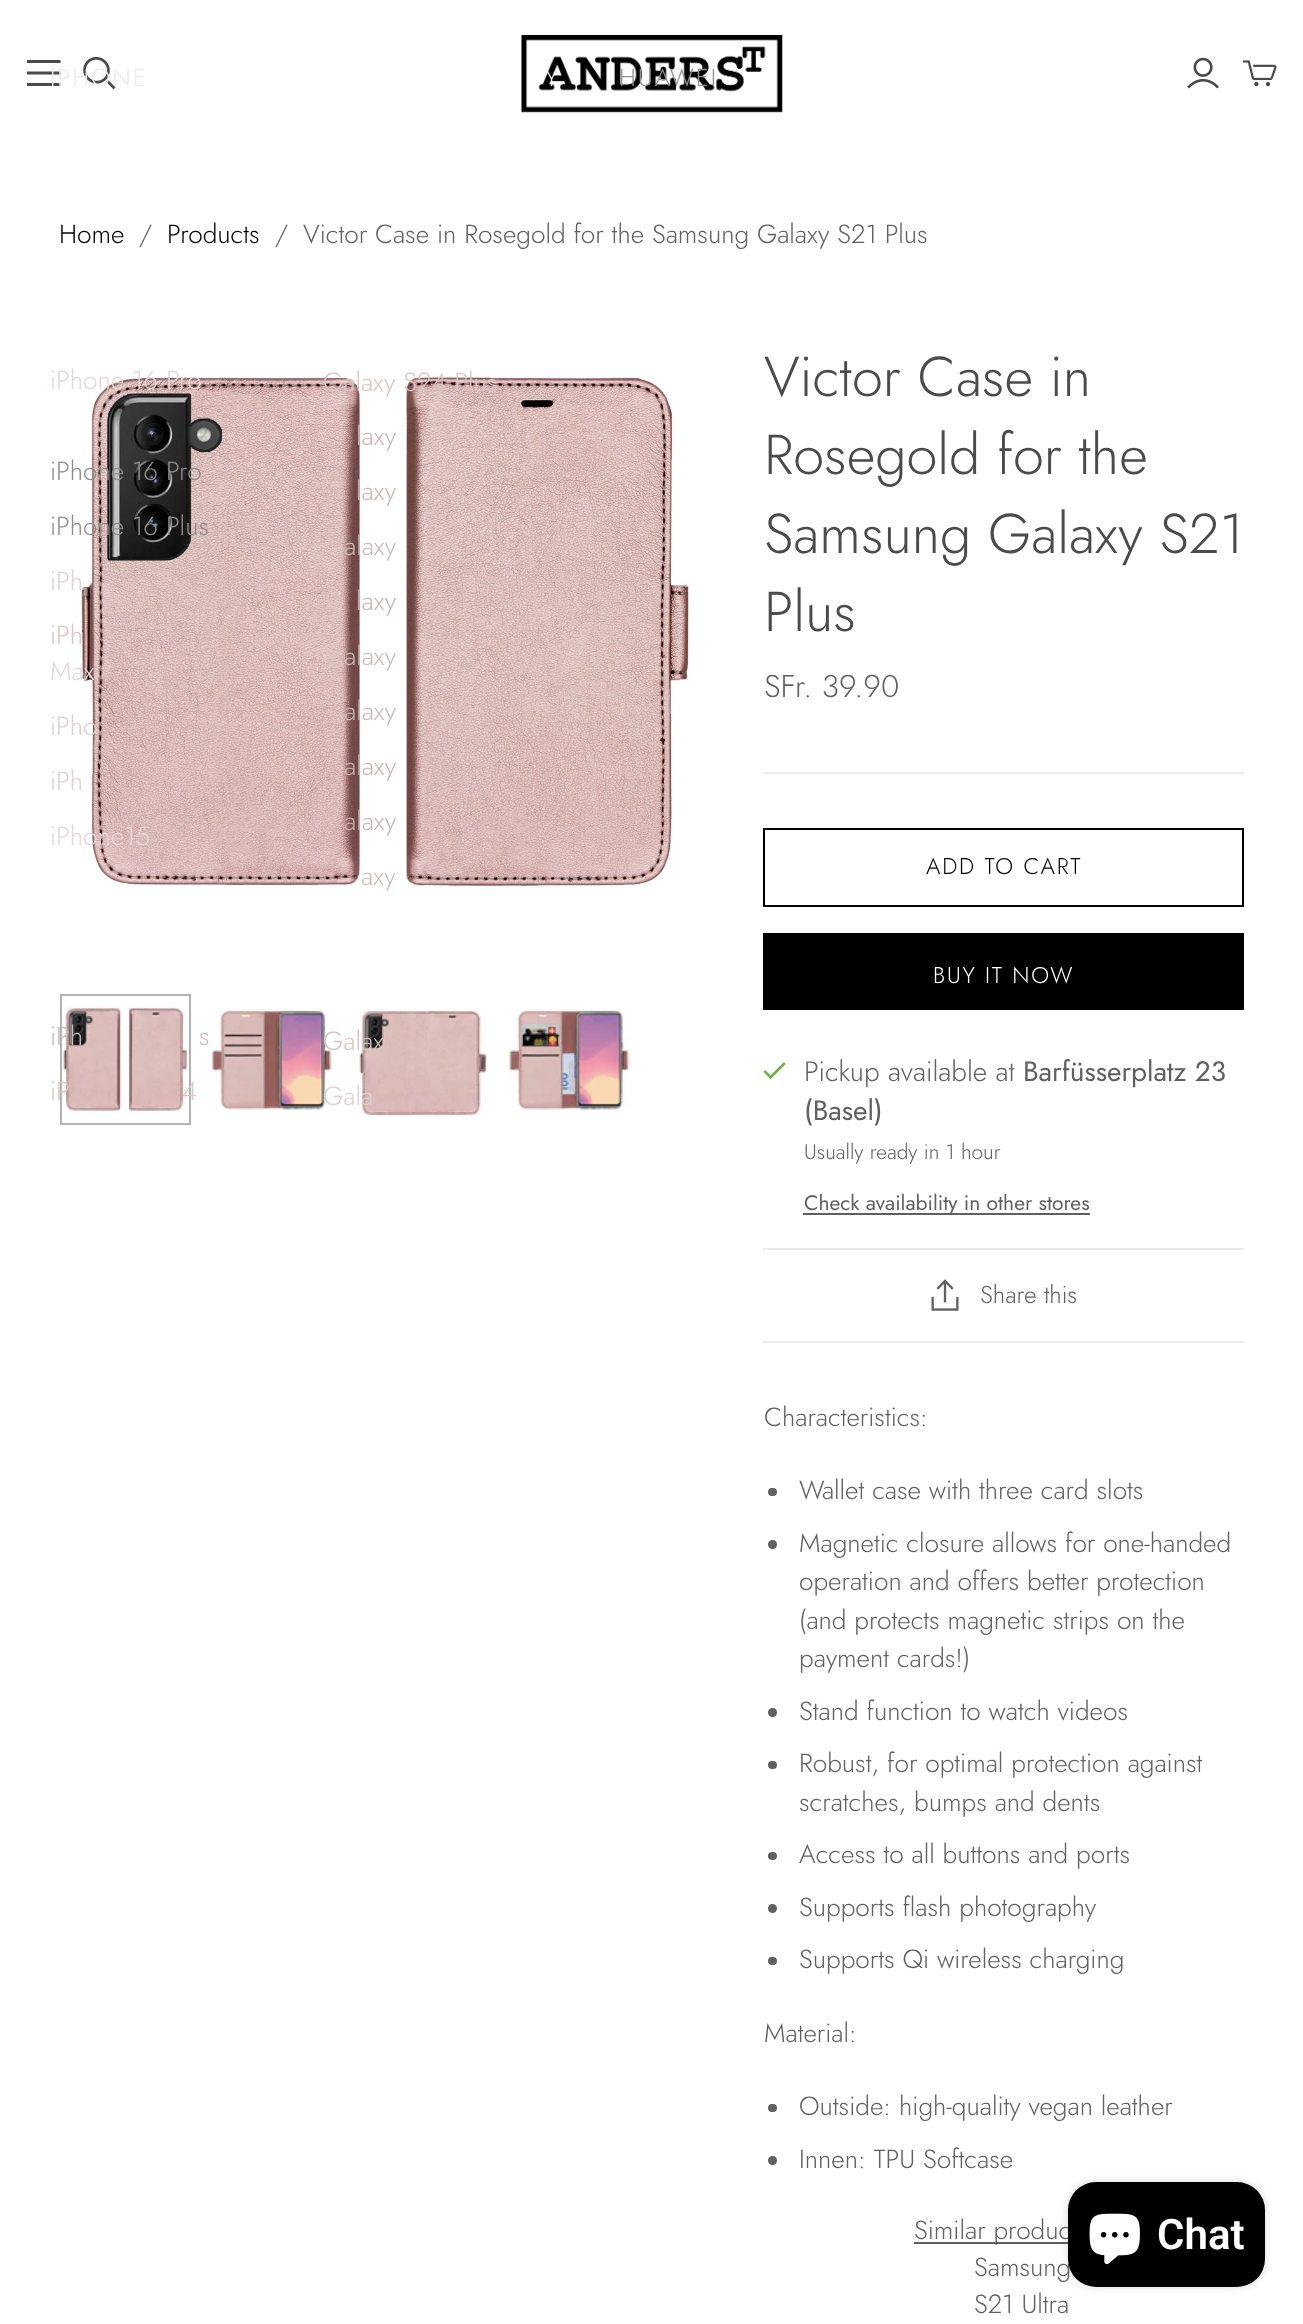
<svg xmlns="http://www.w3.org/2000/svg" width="1303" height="2324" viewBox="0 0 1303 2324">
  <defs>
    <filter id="blur1" x="-50%" y="-200%" width="200%" height="500%"><feGaussianBlur stdDeviation="4.5"/></filter>
  </defs>
  <rect width="100%" height="100%" fill="#ffffff"/>
  <image x="521" y="35" width="262" height="78" href="img1.png"/>
  <path d="M60.5 63H27V60H60.5ZM60.5 74.5H27V71.5H60.5ZM27 86H60.5V83H27Z" fill="#4b4b4b" fill-rule="evenodd"/>
  <image x="83" y="56" width="33" height="34" href="img2.png"/>
  <image x="1187" y="57" width="32" height="32" href="img3.png"/>
  <image x="1243" y="60" width="34" height="27" href="img4.png"/>
  <text x="50" y="86" font-family="Jost" font-size="24.5" font-weight="300" letter-spacing="2" fill="#ebebeb">IPHONE</text>
  <image x="80" y="375" width="610" height="513" href="img5.png"/>
  <text x="50" y="389" font-family="Jost" font-size="26.25" font-weight="300" fill="#e3d7d6">iPhone 16 Pro</text>
  <text x="50" y="480" font-family="Jost" font-size="26.25" font-weight="300" fill="#908c8c">iPhone 16 Pro</text>
  <text x="50" y="535" font-family="Jost" font-size="26.25" font-weight="300" fill="#908c8c">iPhone 16 Plus</text>
  <text x="50" y="590" font-family="Jost" font-size="26.25" font-weight="300" fill="#e0d0ce">iPh</text>
  <text x="50" y="644" font-family="Jost" font-size="26.25" font-weight="300" fill="#dbc5c3">iPh</text>
  <text x="50" y="680" font-family="Jost" font-size="26.25" font-weight="300" fill="#e3d7d6">Max</text>
  <text x="50" y="735" font-family="Jost" font-size="26.25" font-weight="300" fill="#e0d0ce">iPho</text>
  <text x="50" y="790" font-family="Jost" font-size="26.25" font-weight="300" fill="#e0d0ce">iPh</text>
  <text x="50" y="845" font-family="Jost" font-size="26.25" font-weight="300" fill="#e3d7d6">iPhone15</text>
  <image x="61" y="1005" width="130" height="110" href="img6.png"/>
  <rect x="61" y="995" width="129" height="129" fill="none" stroke="#000000" stroke-opacity="0.3" stroke-width="2"/>
  <text x="50" y="1045" font-family="Jost" font-size="26.25" font-weight="300" fill="#cabab9">iPh</text>
  <text x="199" y="1045" font-family="Jost" font-size="26.25" font-weight="300" fill="#cabab9">s</text>
  <text x="50" y="1100" font-family="Jost" font-size="26.25" font-weight="300" fill="#dbc5c3">iP</text>
  <text x="182" y="1100" font-family="Jost" font-size="26.25" font-weight="300" fill="#dbc5c3">4</text>
  <text x="545" y="86" font-family="Jost" font-size="24.5" font-weight="300" letter-spacing="2" fill="#f2f2f2">Y</text>
  <text x="323" y="391" font-family="Jost" font-size="26.25" font-weight="300" fill="#dbc5c3">Galaxy S24 Plus</text>
  <text x="356" y="445" font-family="Jost" font-size="26.25" font-weight="300" fill="#ccb4b3">laxy</text>
  <text x="356" y="500" font-family="Jost" font-size="26.25" font-weight="300" fill="#ccb4b3">laxy</text>
  <text x="344" y="555" font-family="Jost" font-size="26.25" font-weight="300" fill="#cabab9">alaxy</text>
  <text x="356" y="610" font-family="Jost" font-size="26.25" font-weight="300" fill="#ccb4b3">laxy</text>
  <text x="344" y="665" font-family="Jost" font-size="26.25" font-weight="300" fill="#cabab9">alaxy</text>
  <text x="344" y="720" font-family="Jost" font-size="26.25" font-weight="300" fill="#cabab9">alaxy</text>
  <text x="344" y="775" font-family="Jost" font-size="26.25" font-weight="300" fill="#ccb4b3">alaxy</text>
  <text x="344" y="830" font-family="Jost" font-size="26.25" font-weight="300" fill="#ccb4b3">alaxy</text>
  <text x="361" y="885" font-family="Jost" font-size="26.25" font-weight="300" fill="#d1b9b9">axy</text>
  <image x="210" y="1007" width="125" height="103" href="img7.png"/>
  <image x="357" y="1010" width="131" height="109" href="img8.png"/>
  <text x="323" y="1050" font-family="Jost" font-size="26.25" font-weight="300" fill="#d3c4c2">Galax</text>
  <text x="323" y="1105" font-family="Jost" font-size="26.25" font-weight="300" fill="#e0d0ce">Gala</text>
  <text x="619" y="86" font-family="Jost" font-size="24.5" font-weight="300" letter-spacing="2" fill="#939393">HUAWEI</text>
  <text x="59" y="243" font-family="Jost" font-size="26.25" font-weight="300" fill="#000000">Home</text>
  <text x="139" y="243" font-family="Jost" font-size="26.25" font-weight="300" fill="#606060">/</text>
  <text x="167" y="243" font-family="Jost" font-size="26.25" font-weight="300" fill="#000000">Products</text>
  <text x="275" y="243" font-family="Jost" font-size="26.25" font-weight="300" fill="#606060">/</text>
  <text x="303" y="243" font-family="Jost" font-size="26.25" font-weight="300" fill="#606060">Victor Case in Rosegold for the Samsung Galaxy S21 Plus</text>
  <image x="508" y="1006" width="124" height="104" href="img9.png"/>
  <text x="764" y="396" font-family="Jost" font-size="56" font-weight="300" fill="#4b4b4b">Victor Case in</text>
  <text x="764" y="474" font-family="Jost" font-size="56" font-weight="300" fill="#4b4b4b">Rosegold for the</text>
  <text x="764" y="553" font-family="Jost" font-size="56" font-weight="300" fill="#4b4b4b">Samsung Galaxy S21</text>
  <text x="764" y="631" font-family="Jost" font-size="56" font-weight="300" fill="#4b4b4b">Plus</text>
  <text x="764" y="697" font-family="Jost" font-size="31.5" font-weight="300" fill="#606060">SFr. 39.90</text>
  <rect x="763" y="772" width="481" height="2" fill="#ebebeb"/>
  <rect x="764" y="829" width="479" height="77" fill="none" stroke="#000000" stroke-width="2"/>
  <text x="926" y="874" font-family="Jost" font-size="22.75" font-weight="300" letter-spacing="1.75" fill="#000000">ADD TO CART</text>
  <rect x="763" y="933" width="481" height="77" fill="#000000"/>
  <text x="933" y="983" font-family="Jost" font-size="22.75" font-weight="300" letter-spacing="1.75" fill="#ffffff">BUY IT NOW</text>
  <image x="763" y="1062" width="23" height="17" href="img10.png"/>
  <text x="804" y="1081" font-family="Jost" font-size="28" font-weight="300" fill="#606060">Pickup available at</text>
  <text x="1023" y="1081" font-family="Jost" font-size="28" fill="#606060">Barfüsserplatz 23</text>
  <text x="804" y="1120" font-family="Jost" font-size="28" fill="#606060">(Basel)</text>
  <text x="804" y="1159" font-family="Jost" font-size="21" font-weight="300" fill="#606060">Usually ready in 1 hour</text>
  <rect x="803" y="1213" width="287" height="2" fill="#606060"/>
  <text x="804" y="1210" font-family="Jost" font-size="21" fill="#606060">Check availability in other stores</text>
  <rect x="763" y="1248" width="481" height="2" fill="#ebebeb"/>
  <rect x="763" y="1341" width="481" height="2" fill="#ebebeb"/>
  <image x="931" y="1279" width="28" height="32" href="img11.png"/>
  <text x="980" y="1303" font-family="Jost" font-size="24.5" font-weight="300" fill="#606060">Share this</text>
  <text x="764" y="1426" font-family="Jost" font-size="26.25" font-weight="300" fill="#606060">Characteristics:</text>
  <rect x="768" y="1488" width="9" height="8" rx="4" fill="#606060"/>
  <text x="799" y="1499" font-family="Jost" font-size="26.25" font-weight="300" fill="#606060">Wallet case with three card slots</text>
  <circle cx="772.5" cy="1544.5" r="4.5" fill="#606060"/>
  <text x="799" y="1552" font-family="Jost" font-size="26.25" font-weight="300" fill="#606060">Magnetic closure allows for one-handed</text>
  <text x="799" y="1590" font-family="Jost" font-size="26.25" font-weight="300" fill="#606060">operation and offers better protection</text>
  <text x="799" y="1629" font-family="Jost" font-size="26.25" font-weight="300" fill="#606060">(and protects magnetic strips on the</text>
  <text x="799" y="1667" font-family="Jost" font-size="26.25" font-weight="300" fill="#606060">payment cards!)</text>
  <circle cx="772.5" cy="1712.5" r="4.5" fill="#606060"/>
  <text x="799" y="1720" font-family="Jost" font-size="26.25" font-weight="300" fill="#606060">Stand function to watch videos</text>
  <rect x="768" y="1761" width="9" height="8" rx="4" fill="#606060"/>
  <text x="799" y="1772" font-family="Jost" font-size="26.25" font-weight="300" fill="#606060">Robust, for optimal protection against</text>
  <text x="799" y="1811" font-family="Jost" font-size="26.25" font-weight="300" fill="#606060">scratches, bumps and dents</text>
  <rect x="768" y="1852" width="9" height="8" rx="4" fill="#606060"/>
  <text x="799" y="1863" font-family="Jost" font-size="26.25" font-weight="300" fill="#606060">Access to all buttons and ports</text>
  <circle cx="772.5" cy="1908.5" r="4.5" fill="#606060"/>
  <text x="799" y="1916" font-family="Jost" font-size="26.25" font-weight="300" fill="#606060">Supports flash photography</text>
  <rect x="768" y="1957" width="9" height="8" rx="4" fill="#606060"/>
  <text x="799" y="1968" font-family="Jost" font-size="26.25" font-weight="300" fill="#606060">Supports Qi wireless charging</text>
  <text x="764" y="2042" font-family="Jost" font-size="26.25" font-weight="300" fill="#606060">Material:</text>
  <rect x="768" y="2104" width="9" height="8" rx="4" fill="#606060"/>
  <text x="799" y="2115" font-family="Jost" font-size="26.25" font-weight="300" fill="#606060">Outside: high-quality vegan leather</text>
  <circle cx="772.5" cy="2160.5" r="4.5" fill="#606060"/>
  <text x="799" y="2168" font-family="Jost" font-size="26.25" font-weight="300" fill="#606060">Innen: TPU Softcase</text>
  <rect x="914" y="2242" width="154" height="2" fill="#606060"/>
  <text x="914" y="2239" font-family="Jost" font-size="26.25" font-weight="300" fill="#606060">Similar produc</text>
  <text x="974" y="2276" font-family="Jost" font-size="26.25" font-weight="300" fill="#606060">Samsung</text>
  <text x="974" y="2313" font-family="Jost" font-size="26.25" font-weight="300" fill="#606060">S21 Ultra</text>
  <rect x="1068" y="2182" width="197" height="105" rx="28" fill="#000000" fill-opacity="0.15" filter="url(#blur1)"/>
  <rect x="1068" y="2182" width="197" height="105" rx="28" fill="#000000"/>
  <image x="1089" y="2213" width="51" height="52" href="img12.png"/>
  <text x="1157" y="2249" font-family="Roboto" font-size="42" font-weight="600" fill="#ffffff">Chat</text>
</svg>
